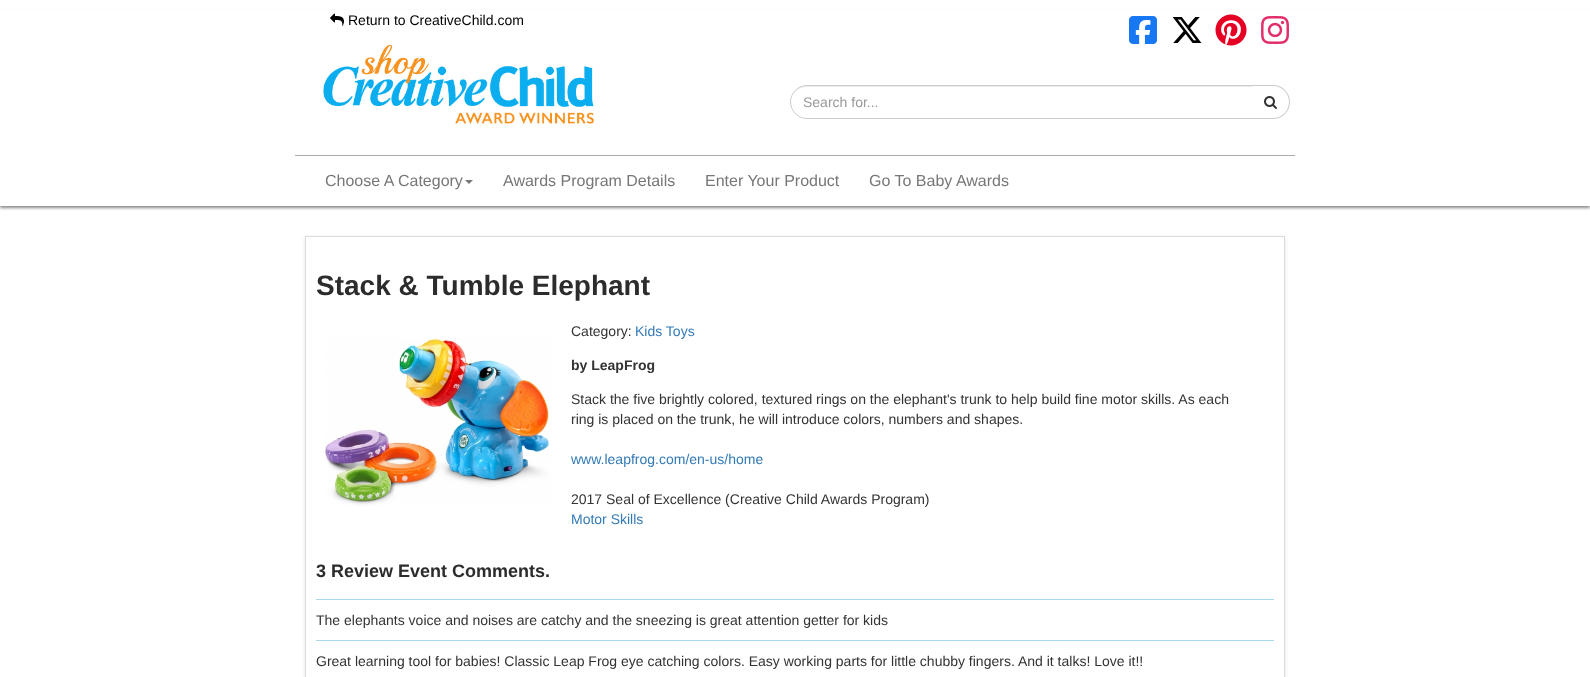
<svg xmlns="http://www.w3.org/2000/svg" width="1590" height="677" viewBox="0 0 1590 677">
  <defs>
    <clipPath id="clip1"><path d="M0 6H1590V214H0ZM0 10H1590V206H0Z" clip-rule="evenodd"/></clipPath>
    <filter id="blur1" x="-50%" y="-200%" width="200%" height="500%"><feGaussianBlur stdDeviation="1.5"/></filter>
    <clipPath id="clip2"><path d="M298 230H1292V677H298ZM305 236H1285V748H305Z" clip-rule="evenodd"/></clipPath>
    <filter id="blur2" x="-50%" y="-200%" width="200%" height="500%"><feGaussianBlur stdDeviation="2"/></filter>
  </defs>
  <rect width="100%" height="100%" fill="#ffffff"/>
  <g clip-path="url(#clip1)">
    <rect x="0" y="12" width="1590" height="196" fill="#888888" filter="url(#blur1)"/>
  </g>
  <image x="330" y="13" width="14" height="13" href="img1.png"/>
  <text x="348" y="25" font-family="Liberation Sans" font-size="14" fill="#000000">Return to CreativeChild.com</text>
  <image x="1129" y="16" width="28" height="28" href="img2.png"/>
  <image x="1172" y="17" width="30" height="26" href="img3.png"/>
  <image x="1215" y="14" width="32" height="32" href="img4.png"/>
  <image x="1261" y="16" width="28" height="28" href="img5.png"/>
  <image x="323" y="45" width="271" height="79" href="img6.png"/>
  <path d="M807 87H1252V86H804C796 88 791 95 791 102C791 94 798 87 807 87Z" fill="#ececec"/>
  <path d="M807 85.5H1252.5V118.5H807C798 118.5 790.5 111 790.5 102C790.5 93 798 85.5 807 85.5Z" fill="none" stroke="#cccccc"/>
  <text x="803" y="107" font-family="Liberation Sans" font-size="14" fill="#999999">Search for...</text>
  <path d="M1252 85H1273C1282.5 85 1290 92.5 1290 102C1290 111.5 1282.5 119 1273 119H1252Z" fill="#ffffff"/>
  <path d="M1252 85H1273C1282.5 85 1290 92.5 1290 102C1290 111.5 1282.5 119 1273 119H1252ZM1252 86H1273C1282 86 1289 93 1289 102C1289 111 1282 118 1273 118H1252Z" fill="#cccccc" fill-rule="evenodd"/>
  <image x="1264" y="96" width="13" height="13" href="img7.png"/>
  <rect x="295" y="155" width="1000" height="1" fill="#aaaaaa"/>
  <text x="325" y="186" font-family="Liberation Sans" font-size="16" fill="#777777">Choose A Category</text>
  <path d="M465 180H473L469 184Z" fill="#777777"/>
  <text x="503" y="186" font-family="Liberation Sans" font-size="16" fill="#777777">Awards Program Details</text>
  <text x="705" y="186" font-family="Liberation Sans" font-size="16" fill="#777777">Enter Your Product</text>
  <text x="869" y="186" font-family="Liberation Sans" font-size="16" fill="#777777">Go To Baby Awards</text>
  <g clip-path="url(#clip2)">
    <rect x="305" y="237" width="980" height="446" fill="#000000" fill-opacity="0.1" filter="url(#blur2)"/>
  </g>
  <rect x="305.5" y="236.5" width="979" height="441" fill="none" stroke="#dddddd"/>
  <text x="316" y="295" font-family="Liberation Sans" font-size="28" font-weight="bold" fill="#2c2c2c">Stack &amp; Tumble Elephant</text>
  <image x="325" y="338" width="225" height="168" href="img8.png"/>
  <text x="571" y="336" font-family="Liberation Sans" font-size="14" fill="#333333">Category:</text>
  <text x="635" y="336" font-family="Liberation Sans" font-size="14" fill="#337ab7">Kids Toys</text>
  <text x="571" y="370" font-family="Liberation Sans" font-size="14" font-weight="bold" fill="#333333">by LeapFrog</text>
  <text x="571" y="404" font-family="Liberation Sans" font-size="14" fill="#333333">Stack the five brightly colored, textured rings on the elephant's trunk to help build fine motor skills. As each</text>
  <text x="571" y="424" font-family="Liberation Sans" font-size="14" fill="#333333">ring is placed on the trunk, he will introduce colors, numbers and shapes.</text>
  <text x="571" y="464" font-family="Liberation Sans" font-size="14" fill="#337ab7">www.leapfrog.com/en-us/home</text>
  <text x="571" y="504" font-family="Liberation Sans" font-size="14" fill="#333333">2017 Seal of Excellence (Creative Child Awards Program)</text>
  <text x="571" y="524" font-family="Liberation Sans" font-size="14" fill="#337ab7">Motor Skills</text>
  <text x="316" y="577" font-family="Liberation Sans" font-size="18" font-weight="bold" fill="#2c2c2c">3 Review Event Comments.</text>
  <rect x="316" y="599" width="958" height="1" fill="#a7d7ea"/>
  <text x="316" y="625" font-family="Liberation Sans" font-size="14" fill="#333333">The elephants voice and noises are catchy and the sneezing is great attention getter for kids</text>
  <rect x="316" y="640" width="958" height="1" fill="#a7d7ea"/>
  <text x="316" y="666" font-family="Liberation Sans" font-size="14" fill="#333333">Great learning tool for babies! Classic Leap Frog eye catching colors. Easy working parts for little chubby fingers. And it talks! Love it!!</text>
</svg>
